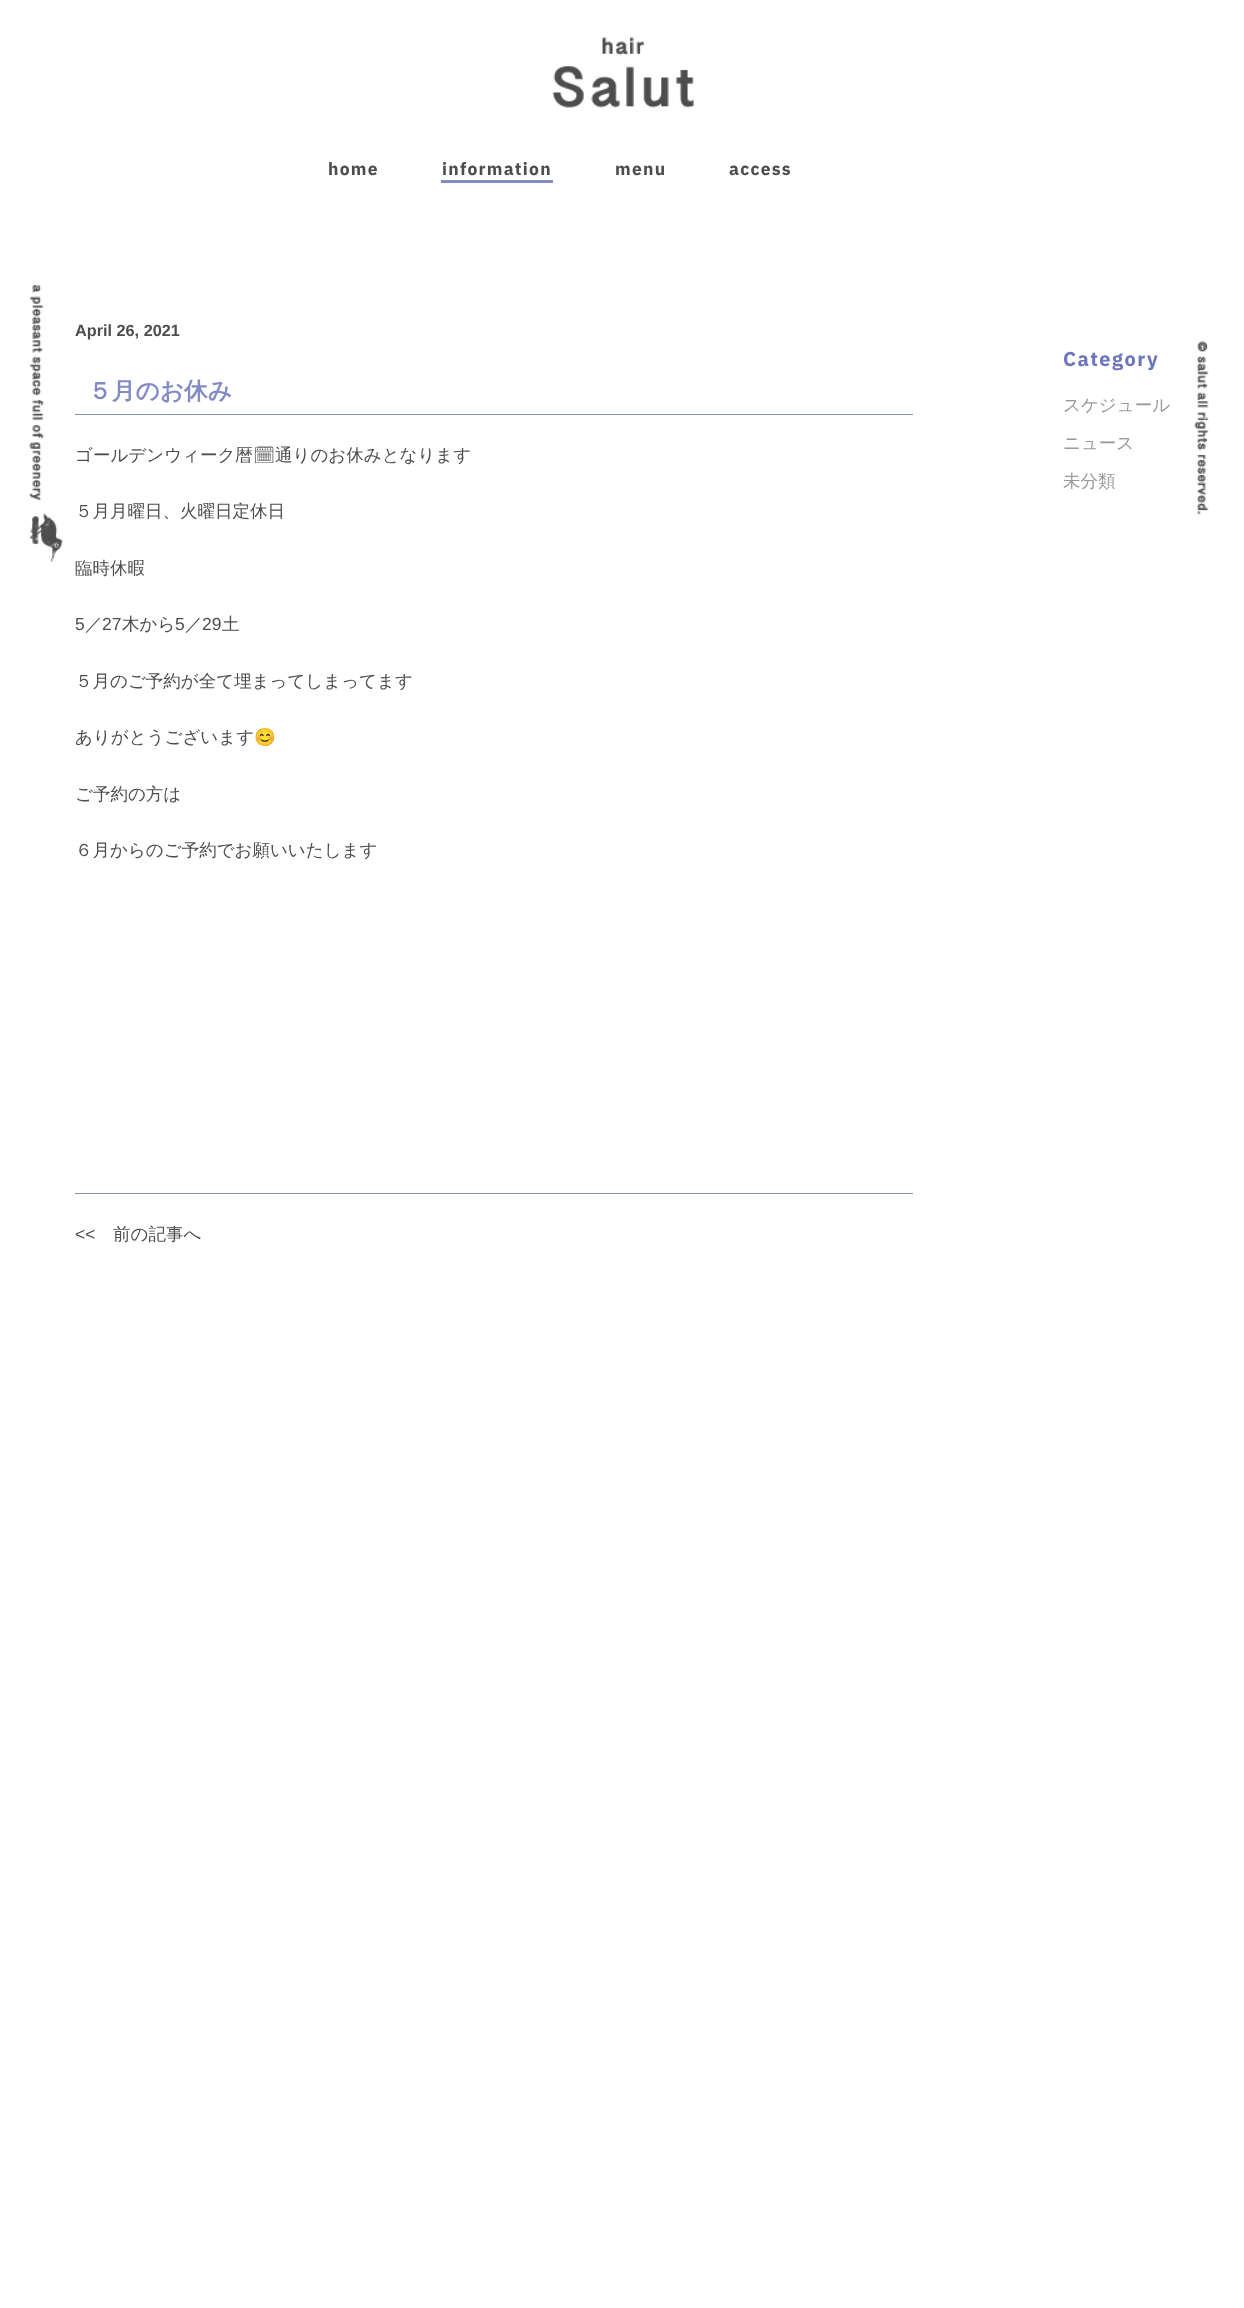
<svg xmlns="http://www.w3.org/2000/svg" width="1244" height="2308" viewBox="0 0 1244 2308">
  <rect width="100%" height="100%" fill="#ffffff"/>
  <image x="552" y="37" width="142" height="71" href="img1.png"/>
  <text x="328" y="175" font-family="IBM Plex Sans" font-size="17.5" font-weight="bold" letter-spacing="1.25" fill="#4d4d4d">home</text>
  <text x="442" y="175" font-family="IBM Plex Sans" font-size="17.5" font-weight="bold" letter-spacing="1.25" fill="#4d4d4d">information</text>
  <rect x="441" y="180" width="112" height="3" fill="#838bc5"/>
  <text x="615" y="175" font-family="IBM Plex Sans" font-size="17.5" font-weight="bold" letter-spacing="1.25" fill="#4d4d4d">menu</text>
  <text x="729" y="175" font-family="IBM Plex Sans" font-size="17.5" font-weight="bold" letter-spacing="1.25" fill="#4d4d4d">access</text>
  <image x="29" y="285" width="34" height="278" href="img2.png"/>
  <rect x="75" y="1193" width="838" height="1" fill="#838bc5"/>
  <text x="75" y="336" font-family="Liberation Sans" font-size="16.25" font-weight="bold" fill="#4d4d4d">April 26, 2021</text>
  <rect x="75" y="414" width="838" height="1" fill="#838bc5"/>
  <text x="88" y="399" font-family="WenQuanYi Zen Hei" font-size="23.75" font-weight="bold" fill="#838bc5">５月のお休み</text>
  <text x="75" y="461" font-family="WenQuanYi Zen Hei" font-size="17.5" font-weight="500" fill="#4d4d4d">ゴールデンウィーク暦</text>
  <text x="253" y="461" font-family="Noto Emoji" font-size="17.5" fill="#4d4d4d">🗓</text>
  <text x="275" y="461" font-family="WenQuanYi Zen Hei" font-size="17.5" font-weight="500" fill="#4d4d4d">通りのお休みとなります</text>
  <text x="75" y="517" font-family="WenQuanYi Zen Hei" font-size="17.5" font-weight="500" fill="#4d4d4d">５月月曜日、火曜日定休日</text>
  <text x="75" y="574" font-family="WenQuanYi Zen Hei" font-size="17.5" font-weight="500" fill="#4d4d4d">臨時休暇</text>
  <text x="75" y="630" font-family="Liberation Sans" font-size="17.5" fill="#4d4d4d">5</text>
  <text x="85" y="630" font-family="WenQuanYi Zen Hei" font-size="17.5" font-weight="500" fill="#4d4d4d">／</text>
  <text x="102" y="630" font-family="Liberation Sans" font-size="17.5" fill="#4d4d4d">27</text>
  <text x="122" y="630" font-family="WenQuanYi Zen Hei" font-size="17.5" font-weight="500" fill="#4d4d4d">木から</text>
  <text x="175" y="630" font-family="Liberation Sans" font-size="17.5" fill="#4d4d4d">5</text>
  <text x="185" y="630" font-family="WenQuanYi Zen Hei" font-size="17.5" font-weight="500" fill="#4d4d4d">／</text>
  <text x="202" y="630" font-family="Liberation Sans" font-size="17.5" fill="#4d4d4d">29</text>
  <text x="222" y="630" font-family="WenQuanYi Zen Hei" font-size="17.5" font-weight="500" fill="#4d4d4d">土</text>
  <text x="75" y="687" font-family="WenQuanYi Zen Hei" font-size="17.5" font-weight="500" fill="#4d4d4d">５月のご予約が全て埋まってしまってます</text>
  <text x="75" y="743" font-family="WenQuanYi Zen Hei" font-size="17.5" font-weight="500" fill="#4d4d4d">ありがとうございます</text>
  <text x="254" y="743" font-family="Noto Color Emoji" font-size="17.5" fill="#4d4d4d">😊</text>
  <text x="75" y="800" font-family="WenQuanYi Zen Hei" font-size="17.5" font-weight="500" fill="#4d4d4d">ご予約の方は</text>
  <text x="75" y="856" font-family="WenQuanYi Zen Hei" font-size="17.5" font-weight="500" fill="#4d4d4d">６月からのご予約でお願いいたします</text>
  <text x="75" y="1240" font-family="Liberation Sans" font-size="17.5" fill="#4d4d4d">&lt;&lt;</text>
  <text x="113" y="1240" font-family="WenQuanYi Zen Hei" font-size="17.5" font-weight="500" fill="#4d4d4d">前の記事へ</text>
  <text x="1063" y="366" font-family="IBM Plex Sans" font-size="20" font-weight="bold" letter-spacing="1.5" fill="#6d76bb">Category</text>
  <text x="1063" y="411" font-family="WenQuanYi Zen Hei" font-size="17.5" font-weight="500" fill="#999999">スケジュール</text>
  <text x="1063" y="449" font-family="WenQuanYi Zen Hei" font-size="17.5" font-weight="500" fill="#999999">ニュース</text>
  <text x="1063" y="487" font-family="WenQuanYi Zen Hei" font-size="17.5" font-weight="500" fill="#999999">未分類</text>
  <image x="1194" y="341" width="15" height="173" href="img3.png"/>
</svg>
